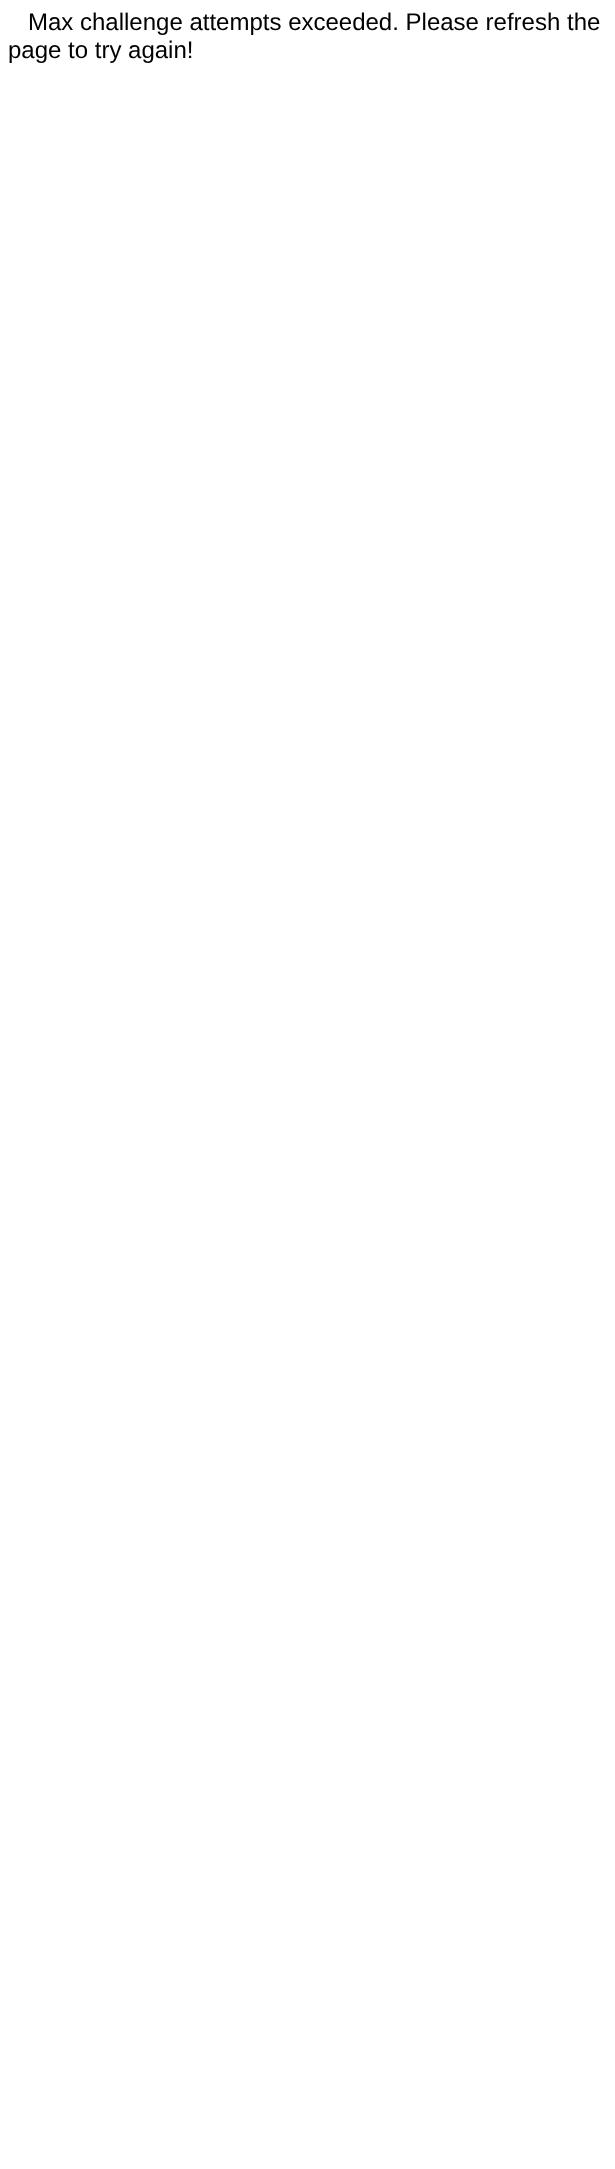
<svg xmlns="http://www.w3.org/2000/svg" width="615" height="2169" viewBox="0 0 615 2169">
  <rect width="100%" height="100%" fill="#ffffff"/>
  <text x="28" y="30" font-family="Liberation Sans" font-size="24" fill="#000000">Max challenge attempts exceeded. Please refresh the</text>
  <text x="8" y="58" font-family="Liberation Sans" font-size="24" fill="#000000">page to try again!</text>
</svg>
